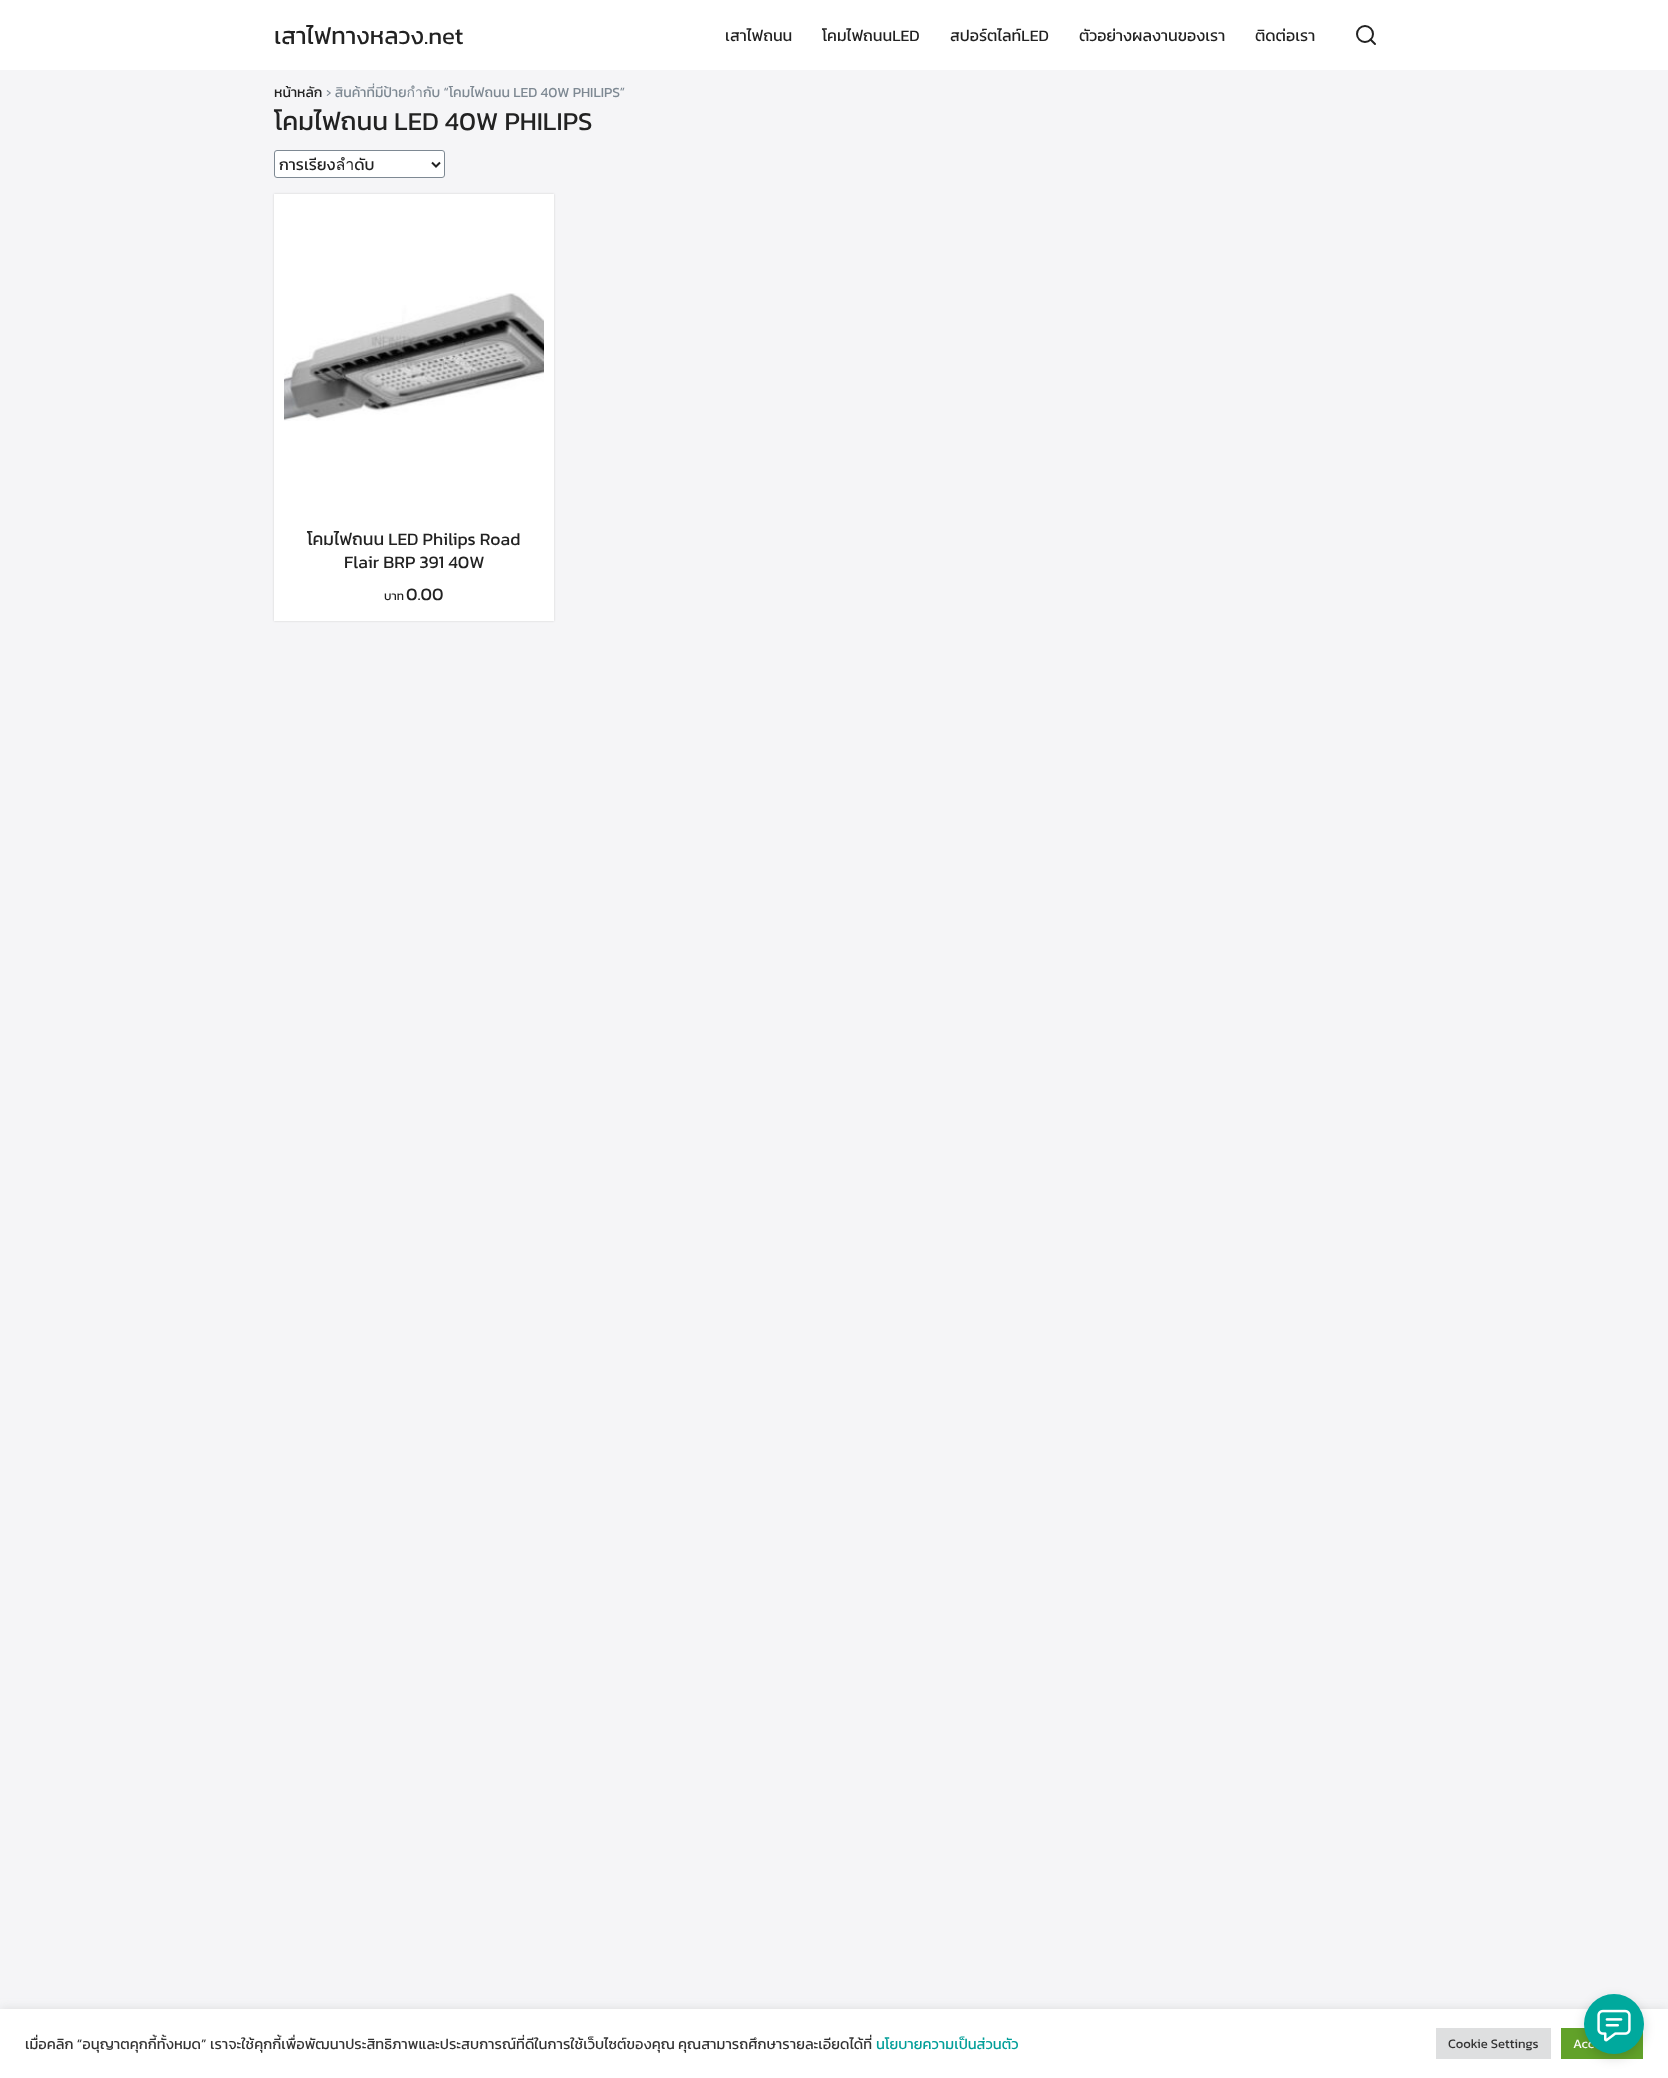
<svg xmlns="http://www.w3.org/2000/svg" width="1668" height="2078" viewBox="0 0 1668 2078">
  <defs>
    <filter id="blur1" x="-50%" y="-200%" width="200%" height="500%"><feGaussianBlur stdDeviation="1"/></filter>
    <filter id="blur2" x="-50%" y="-200%" width="200%" height="500%"><feGaussianBlur stdDeviation="5"/></filter>
    <filter id="blur3" x="-50%" y="-200%" width="200%" height="500%"><feGaussianBlur stdDeviation="6"/></filter>
  </defs>
  <rect width="100%" height="100%" fill="#f5f5f7"/>
  <rect x="0" y="0" width="1668" height="70" fill="#ffffff"/>
  <text x="274" y="44" font-family="Kanit" font-size="24" fill="#222222">เสาไฟทางหลวง.net</text>
  <text x="725" y="41" font-family="Kanit" font-size="16" fill="#222222">เสาไฟถนน</text>
  <text x="822" y="41" font-family="Kanit" font-size="16" fill="#222222">โคมไฟถนนLED</text>
  <text x="950" y="41" font-family="Kanit" font-size="16" fill="#222222">สปอร์ตไลท์LED</text>
  <text x="1079" y="41" font-family="Kanit" font-size="16" fill="#222222">ตัวอย่างผลงานของเรา</text>
  <text x="1255" y="41" font-family="Kanit" font-size="16" fill="#222222">ติดต่อเรา</text>
  <circle cx="1365" cy="34" r="8" fill="none" stroke="#222222" stroke-width="2"/>
  <path d="M1375 44L1370.5 39.5" fill="none" stroke="#222222" stroke-width="2" stroke-linecap="round" stroke-linejoin="round"/>
  <text x="274" y="97" font-family="Kanit" font-size="14" fill="#222222">หน้าหลัก</text>
  <text x="326" y="97" font-family="Kanit" font-size="14" fill="#7e8993">› สินค้าที่มีป้ายกำกับ “โคมไฟถนน LED 40W PHILIPS”</text>
  <text x="274" y="130" font-family="Kanit" font-size="26" fill="#222222">โคมไฟถนน LED 40W PHILIPS</text>
  <rect x="274.5" y="150.5" width="170" height="27" rx="2.5" fill="#ffffff" stroke="#7e8993"/>
  <path d="M432 162.5L436 166.5L440 162.5" fill="none" stroke="#222222" stroke-width="2"/>
  <text x="279" y="170" font-family="Kanit" font-size="16" fill="#222222">การเรียงลำดับ</text>
  <rect x="274" y="194" width="280" height="427" fill="#000000" fill-opacity="0.15" filter="url(#blur1)"/>
  <rect x="274" y="194" width="280" height="427" fill="#ffffff"/>
  <image x="284" y="293" width="260" height="128" href="img1.png"/>
  <text x="307" y="545" font-family="Kanit" font-size="17.6" fill="#222222">โคมไฟถนน LED Philips Road</text>
  <text x="344" y="568" font-family="Kanit" font-size="17.6" fill="#222222">Flair BRP 391 40W</text>
  <text x="384" y="600" font-family="Kanit" font-size="12" fill="#222222">บาท</text>
  <text x="406" y="600" font-family="Kanit" font-size="17.6" fill="#222222">0.00</text>
  <rect x="0" y="2008" width="1668" height="69" fill="#acabab" fill-opacity="0.3" filter="url(#blur2)"/>
  <rect x="0" y="2009" width="1668" height="69" fill="#ffffff"/>
  <text x="25" y="2049" font-family="Kanit" font-size="14.67" fill="#333333">เมื่อคลิก “อนุญาตคุกกี้ทั้งหมด” เราจะใช้คุกกี้เพื่อพัฒนาประสิทธิภาพและประสบการณ์ที่ดีในการใช้เว็บไซต์ของคุณ คุณสามารถศึกษารายละเอียดได้ที่</text>
  <text x="876" y="2049" font-family="Kanit" font-size="14.67" fill="#009e98">นโยบายความเป็นส่วนตัว</text>
  <rect x="1436" y="2028" width="115" height="31" fill="#dedfe0"/>
  <text x="1448" y="2048" font-family="Kanit" font-size="13" fill="#333333">Cookie Settings</text>
  <rect x="1561" y="2028" width="82" height="31" fill="#61a229"/>
  <text x="1573" y="2048" font-family="Kanit" font-size="13" fill="#ffffff">Acc</text>
  <rect x="1584" y="1998" width="60" height="60" rx="30" fill="#000000" fill-opacity="0.15" filter="url(#blur3)"/>
  <circle cx="1614" cy="2024" r="30" fill="#00a99d"/>
  <image x="1597" y="2009" width="34" height="33" href="img2.png"/>
</svg>
